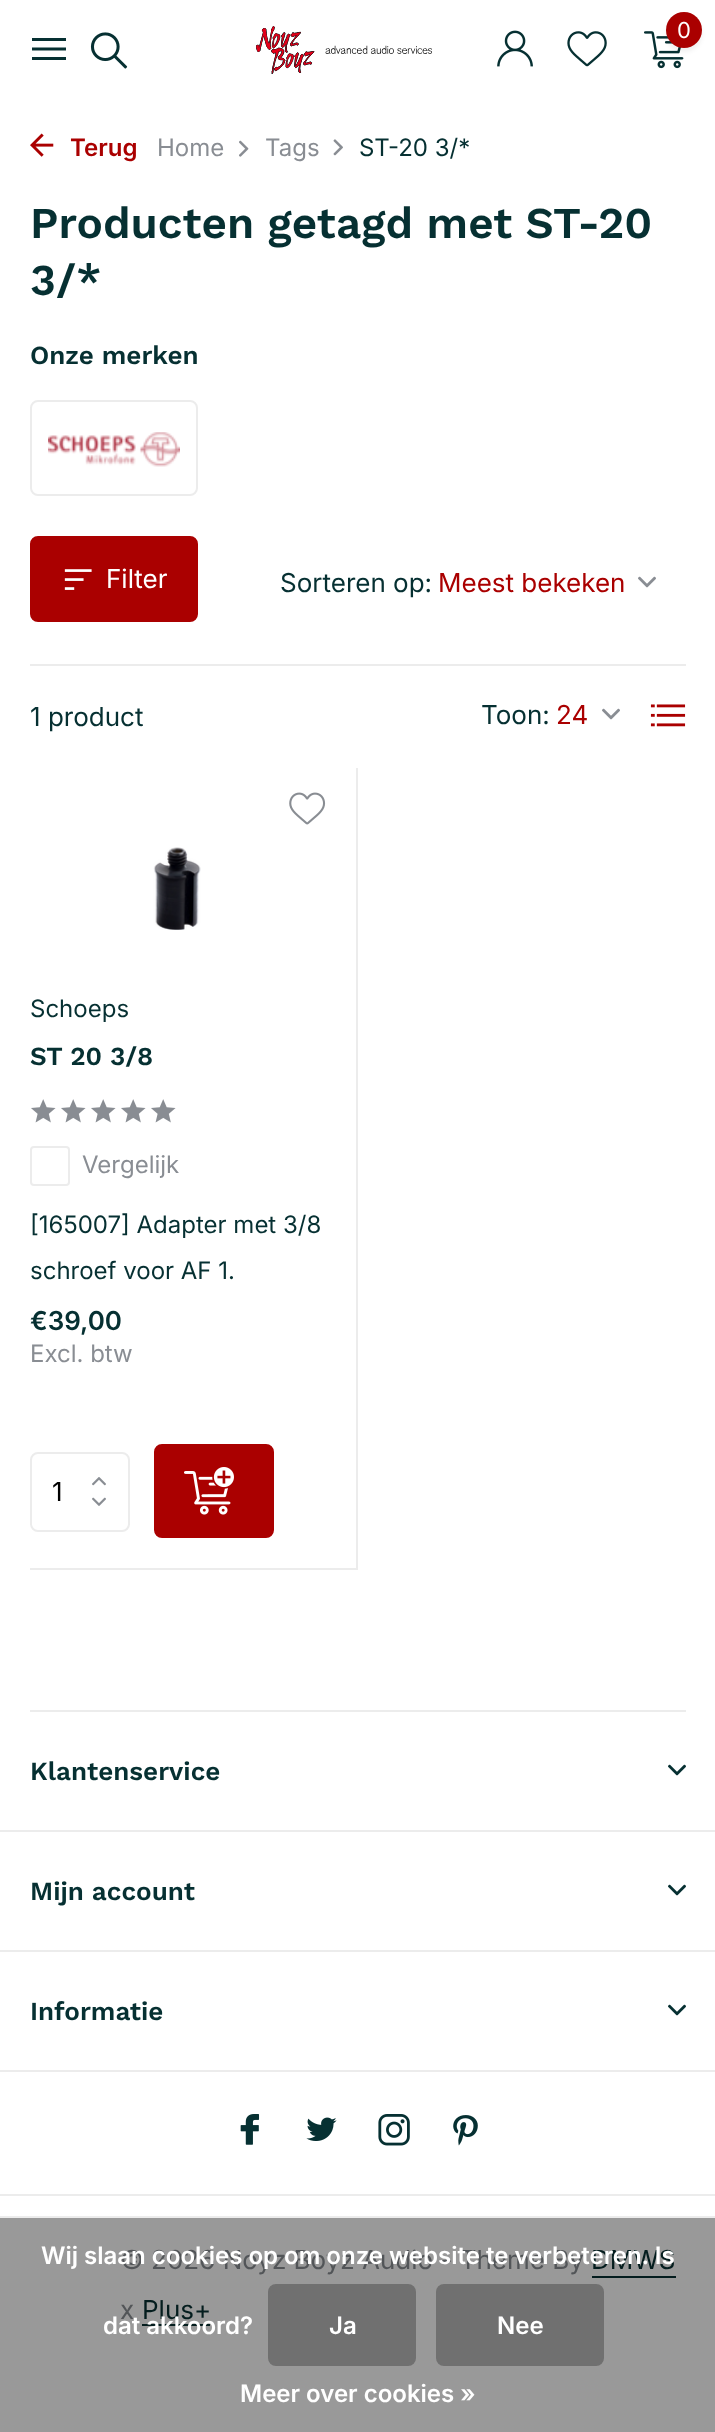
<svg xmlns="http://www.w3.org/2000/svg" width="715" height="2432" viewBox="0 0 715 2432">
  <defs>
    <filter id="blur1" x="-50%" y="-200%" width="200%" height="500%"><feGaussianBlur stdDeviation="2"/></filter>
  </defs>
  <rect width="100%" height="100%" fill="#ffffff"/>
  <rect x="0" y="2218" width="715" height="214" fill="#999999"/>
  <path d="M66 41H32V38H66ZM66 50.5H32V47.5H66ZM32 60H66V57H32Z" fill="#063032"/>
  <image x="90" y="32" width="38" height="37" href="img1.png"/>
  <image x="256" y="26" width="176" height="48" href="img2.png"/>
  <image x="497" y="30" width="36" height="37" href="img3.png"/>
  <image x="567" y="31" width="40" height="36" href="img4.png"/>
  <image x="644" y="31" width="40" height="38" href="img5.png"/>
  <rect x="666" y="16" width="36" height="36" rx="18" fill="#000000" fill-opacity="0.06" filter="url(#blur1)"/>
  <circle cx="684" cy="30" r="18" fill="#aa0000"/>
  <text x="677" y="38" font-family="Inter" font-size="22" fill="#ffffff">0</text>
  <image x="30" y="133" width="24" height="24" href="img6.png"/>
  <text x="70" y="156" font-family="Inter" font-size="24" font-weight="600" fill="#aa0000">Terug</text>
  <text x="157" y="156" font-family="Inter" font-size="24" fill="#898d93">Home</text>
  <image x="239" y="140" width="10" height="17" href="img7.png"/>
  <text x="265" y="156" font-family="Inter" font-size="24" fill="#898d93">Tags</text>
  <image x="333" y="139" width="10" height="17" href="img8.png"/>
  <text x="359" y="156" font-family="Inter" font-size="24" fill="#063032">ST-20 3/*</text>
  <text x="30" y="238" font-family="Work Sans" font-size="44" font-weight="600" fill="#063032">Producten getagd met ST-20</text>
  <text x="30" y="295" font-family="Work Sans" font-size="44" font-weight="600" fill="#063032">3/*</text>
  <text x="30" y="364" font-family="Work Sans" font-size="26" font-weight="600" fill="#063032">Onze merken</text>
  <rect x="31" y="401" width="166" height="94" rx="7" fill="none" stroke="#ececec" stroke-width="2"/>
  <image x="48" y="432" width="132" height="35" href="img9.png"/>
  <rect x="31" y="537" width="166" height="84" rx="7" fill="#aa0000" stroke="#aa0000" stroke-width="2"/>
  <image x="64" y="569" width="28" height="21" href="img10.png"/>
  <text x="106" y="588" font-family="Inter" font-size="26" fill="#ffffff">Filter</text>
  <text x="280" y="592" font-family="Inter" font-size="26" fill="#063032">Sorteren op:</text>
  <text x="438" y="592" font-family="Inter" font-size="26" fill="#aa0000">Meest bekeken</text>
  <image x="638" y="576" width="18" height="12" href="img11.png"/>
  <text x="481" y="724" font-family="Inter" font-size="26" fill="#063032">Toon:</text>
  <text x="556" y="724" font-family="Inter" font-size="26" fill="#aa0000">24</text>
  <image x="602" y="708" width="18" height="12" href="img11.png"/>
  <image x="650" y="704" width="36" height="23" href="img12.png"/>
  <rect x="30" y="664" width="656" height="2" fill="#ececec"/>
  <text x="30" y="726" font-family="Inter" font-size="26" fill="#063032">1 product</text>
  <rect x="356" y="768" width="2" height="802" fill="#ececec"/>
  <rect x="30" y="1568" width="328" height="2" fill="#ececec"/>
  <image x="289" y="792" width="37" height="33" href="img13.png"/>
  <image x="153" y="847" width="48" height="83" href="img14.png"/>
  <text x="30" y="1017" font-family="Inter" font-size="24" fill="#063032">Schoeps</text>
  <text x="30" y="1065" font-family="Work Sans" font-size="26" font-weight="600" fill="#063032">ST 20 3/8</text>
  <image x="31" y="1099" width="25" height="24" href="img15.png"/>
  <image x="61" y="1099" width="25" height="24" href="img15.png"/>
  <image x="91" y="1099" width="25" height="24" href="img15.png"/>
  <image x="121" y="1099" width="25" height="24" href="img15.png"/>
  <image x="151" y="1099" width="25" height="24" href="img15.png"/>
  <rect x="31" y="1147" width="38" height="38" rx="3" fill="none" stroke="#ececec" stroke-width="2"/>
  <text x="82" y="1173" font-family="Inter" font-size="24" fill="#898d93">Vergelijk</text>
  <text x="30" y="1233" font-family="Inter" font-size="24" fill="#063032">[165007] Adapter met 3/8</text>
  <text x="30" y="1279" font-family="Inter" font-size="24" fill="#063032">schroef voor AF 1.</text>
  <text x="30" y="1330" font-family="Inter" font-size="26" font-weight="600" fill="#063032">€39,00</text>
  <text x="30" y="1362" font-family="Inter" font-size="24" fill="#898d93">Excl. btw</text>
  <rect x="31" y="1453" width="98" height="78" rx="7" fill="none" stroke="#ececec" stroke-width="2"/>
  <text x="52" y="1501" font-family="Inter" font-size="26" fill="#000000">1</text>
  <image x="92" y="1477" width="14" height="9" href="img16.png"/>
  <image x="92" y="1497" width="14" height="9" href="img17.png"/>
  <rect x="155" y="1445" width="118" height="92" rx="7" fill="#aa0000" stroke="#aa0000" stroke-width="2"/>
  <image x="184" y="1467" width="50" height="48" href="img18.png"/>
  <rect x="30" y="1710" width="656" height="2" fill="#ececec"/>
  <text x="30" y="1780" font-family="Work Sans" font-size="26" font-weight="600" fill="#063032">Klantenservice</text>
  <image x="668" y="1764" width="18" height="12" href="img19.png"/>
  <rect x="0" y="1830" width="715" height="2" fill="#ececec"/>
  <text x="30" y="1900" font-family="Work Sans" font-size="26" font-weight="600" fill="#063032">Mijn account</text>
  <image x="668" y="1884" width="18" height="12" href="img19.png"/>
  <rect x="0" y="1950" width="715" height="2" fill="#ececec"/>
  <text x="30" y="2020" font-family="Work Sans" font-size="26" font-weight="600" fill="#063032">Informatie</text>
  <image x="668" y="2004" width="18" height="12" href="img19.png"/>
  <rect x="0" y="2070" width="715" height="2" fill="#ececec"/>
  <image x="240" y="2114" width="20" height="31" href="img20.png"/>
  <image x="306" y="2117" width="31" height="24" href="img21.png"/>
  <image x="378" y="2114" width="32" height="32" href="img22.png"/>
  <image x="453" y="2115" width="25" height="31" href="img23.png"/>
  <rect x="0" y="2194" width="715" height="2" fill="#ececec"/>
  <text x="120" y="2269" font-family="Inter" font-size="26" fill="#525558">© 2026 Noyz Boyz Audio - Theme By</text>
  <text x="591" y="2269" font-family="Inter" font-size="26" fill="#041d1e">DMWS</text>
  <rect x="592" y="2276" width="84" height="2" fill="#041d1e"/>
  <text x="120" y="2319" font-family="Inter" font-size="26" fill="#525558">x</text>
  <text x="142" y="2319" font-family="Inter" font-size="26" fill="#041d1e">Plus+</text>
  <rect x="142" y="2324" width="68" height="2" fill="#041d1e"/>
  <rect x="0" y="2216" width="715" height="2" fill="#ececec"/>
  <text x="41" y="2264" font-family="Inter" font-size="24" font-weight="600" fill="#ffffff">Wij slaan cookies op om onze website te verbeteren. Is</text>
  <text x="103" y="2334" font-family="Inter" font-size="24" font-weight="600" fill="#ffffff">dat akkoord?</text>
  <rect x="268" y="2284" width="148" height="82" rx="8" fill="#707070"/>
  <text x="329" y="2334" font-family="Inter" font-size="24" font-weight="600" fill="#ffffff">Ja</text>
  <rect x="436" y="2284" width="168" height="82" rx="8" fill="#707070"/>
  <text x="497" y="2334" font-family="Inter" font-size="24" font-weight="600" fill="#ffffff">Nee</text>
  <text x="240" y="2402" font-family="Inter" font-size="24" font-weight="600" fill="#ffffff">Meer over cookies »</text>
</svg>
